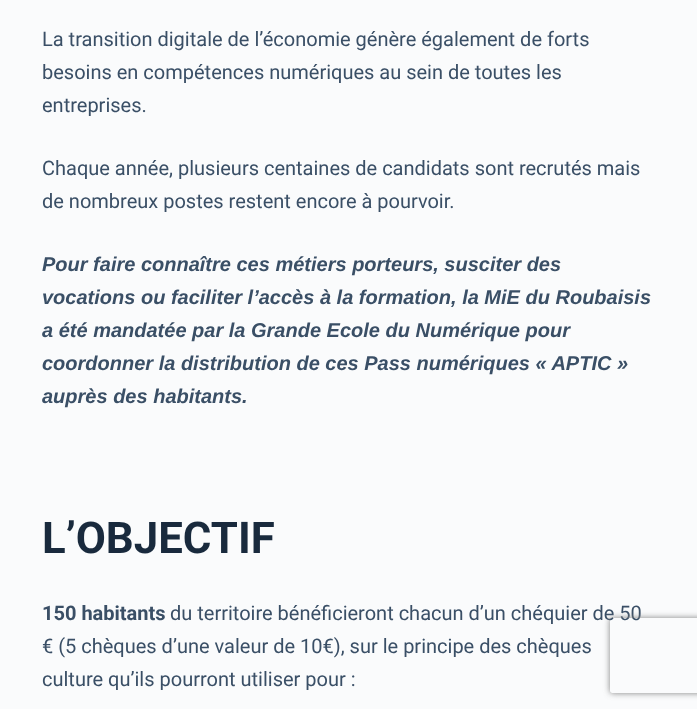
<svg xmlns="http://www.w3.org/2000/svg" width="697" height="709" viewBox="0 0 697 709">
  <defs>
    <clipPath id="clip1"><path d="M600 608H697V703H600ZM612.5 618H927.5C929 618 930 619 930 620.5V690.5C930 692 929 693 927.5 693H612.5C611 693 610 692 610 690.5V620.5C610 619 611 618 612.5 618Z" clip-rule="evenodd"/></clipPath>
    <filter id="blur1" x="-50%" y="-200%" width="200%" height="500%"><feGaussianBlur stdDeviation="3"/></filter>
  </defs>
  <rect width="100%" height="100%" fill="#fafbfc"/>
  <text x="42" y="46" font-family="Roboto" font-size="20" fill="#3a4f66">La transition digitale de l’économie génère également de forts</text>
  <text x="42" y="79" font-family="Roboto" font-size="20" fill="#3a4f66">besoins en compétences numériques au sein de toutes les</text>
  <text x="42" y="112" font-family="Roboto" font-size="20" fill="#3a4f66">entreprises.</text>
  <text x="42" y="175" font-family="Roboto" font-size="20" fill="#3a4f66">Chaque année, plusieurs centaines de candidats sont recrutés mais</text>
  <text x="42" y="208" font-family="Roboto" font-size="20" fill="#3a4f66">de nombreux postes restent encore à pourvoir.</text>
  <text x="42" y="271" font-family="Liberation Sans" font-size="20" font-weight="bold" font-style="italic" fill="#3a4f66">Pour faire connaître ces métiers porteurs, susciter des</text>
  <text x="42" y="304" font-family="Liberation Sans" font-size="20" font-weight="bold" font-style="italic" fill="#3a4f66">vocations ou faciliter l’accès à la formation, la MiE du Roubaisis</text>
  <text x="42" y="337" font-family="Liberation Sans" font-size="20" font-weight="bold" font-style="italic" fill="#3a4f66">a été mandatée par la Grande Ecole du Numérique pour</text>
  <text x="42" y="370" font-family="Liberation Sans" font-size="20" font-weight="bold" font-style="italic" fill="#3a4f66">coordonner la distribution de ces Pass numériques « APTIC »</text>
  <text x="42" y="403" font-family="Liberation Sans" font-size="20" font-weight="bold" font-style="italic" fill="#3a4f66">auprès des habitants.</text>
  <text x="42" y="553" font-family="Roboto" font-size="43.75" font-weight="bold" fill="#192a3d">L’OBJECTIF</text>
  <text x="42" y="620" font-family="Roboto" font-size="20" font-weight="bold" fill="#3a4f66">150 habitants</text>
  <text x="170" y="620" font-family="Roboto" font-size="20" fill="#3a4f66">du territoire bénéficieront chacun d’un chéquier de 50</text>
  <text x="42" y="653" font-family="Roboto" font-size="20" fill="#3a4f66">€ (5 chèques d’une valeur de 10€), sur le principe des chèques</text>
  <text x="42" y="686" font-family="Roboto" font-size="20" fill="#3a4f66">culture qu’ils pourront utiliser pour :</text>
  <g clip-path="url(#clip1)">
    <rect x="610" y="618" width="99" height="75" rx="2.5" fill="#808080" filter="url(#blur1)"/>
  </g>
</svg>
